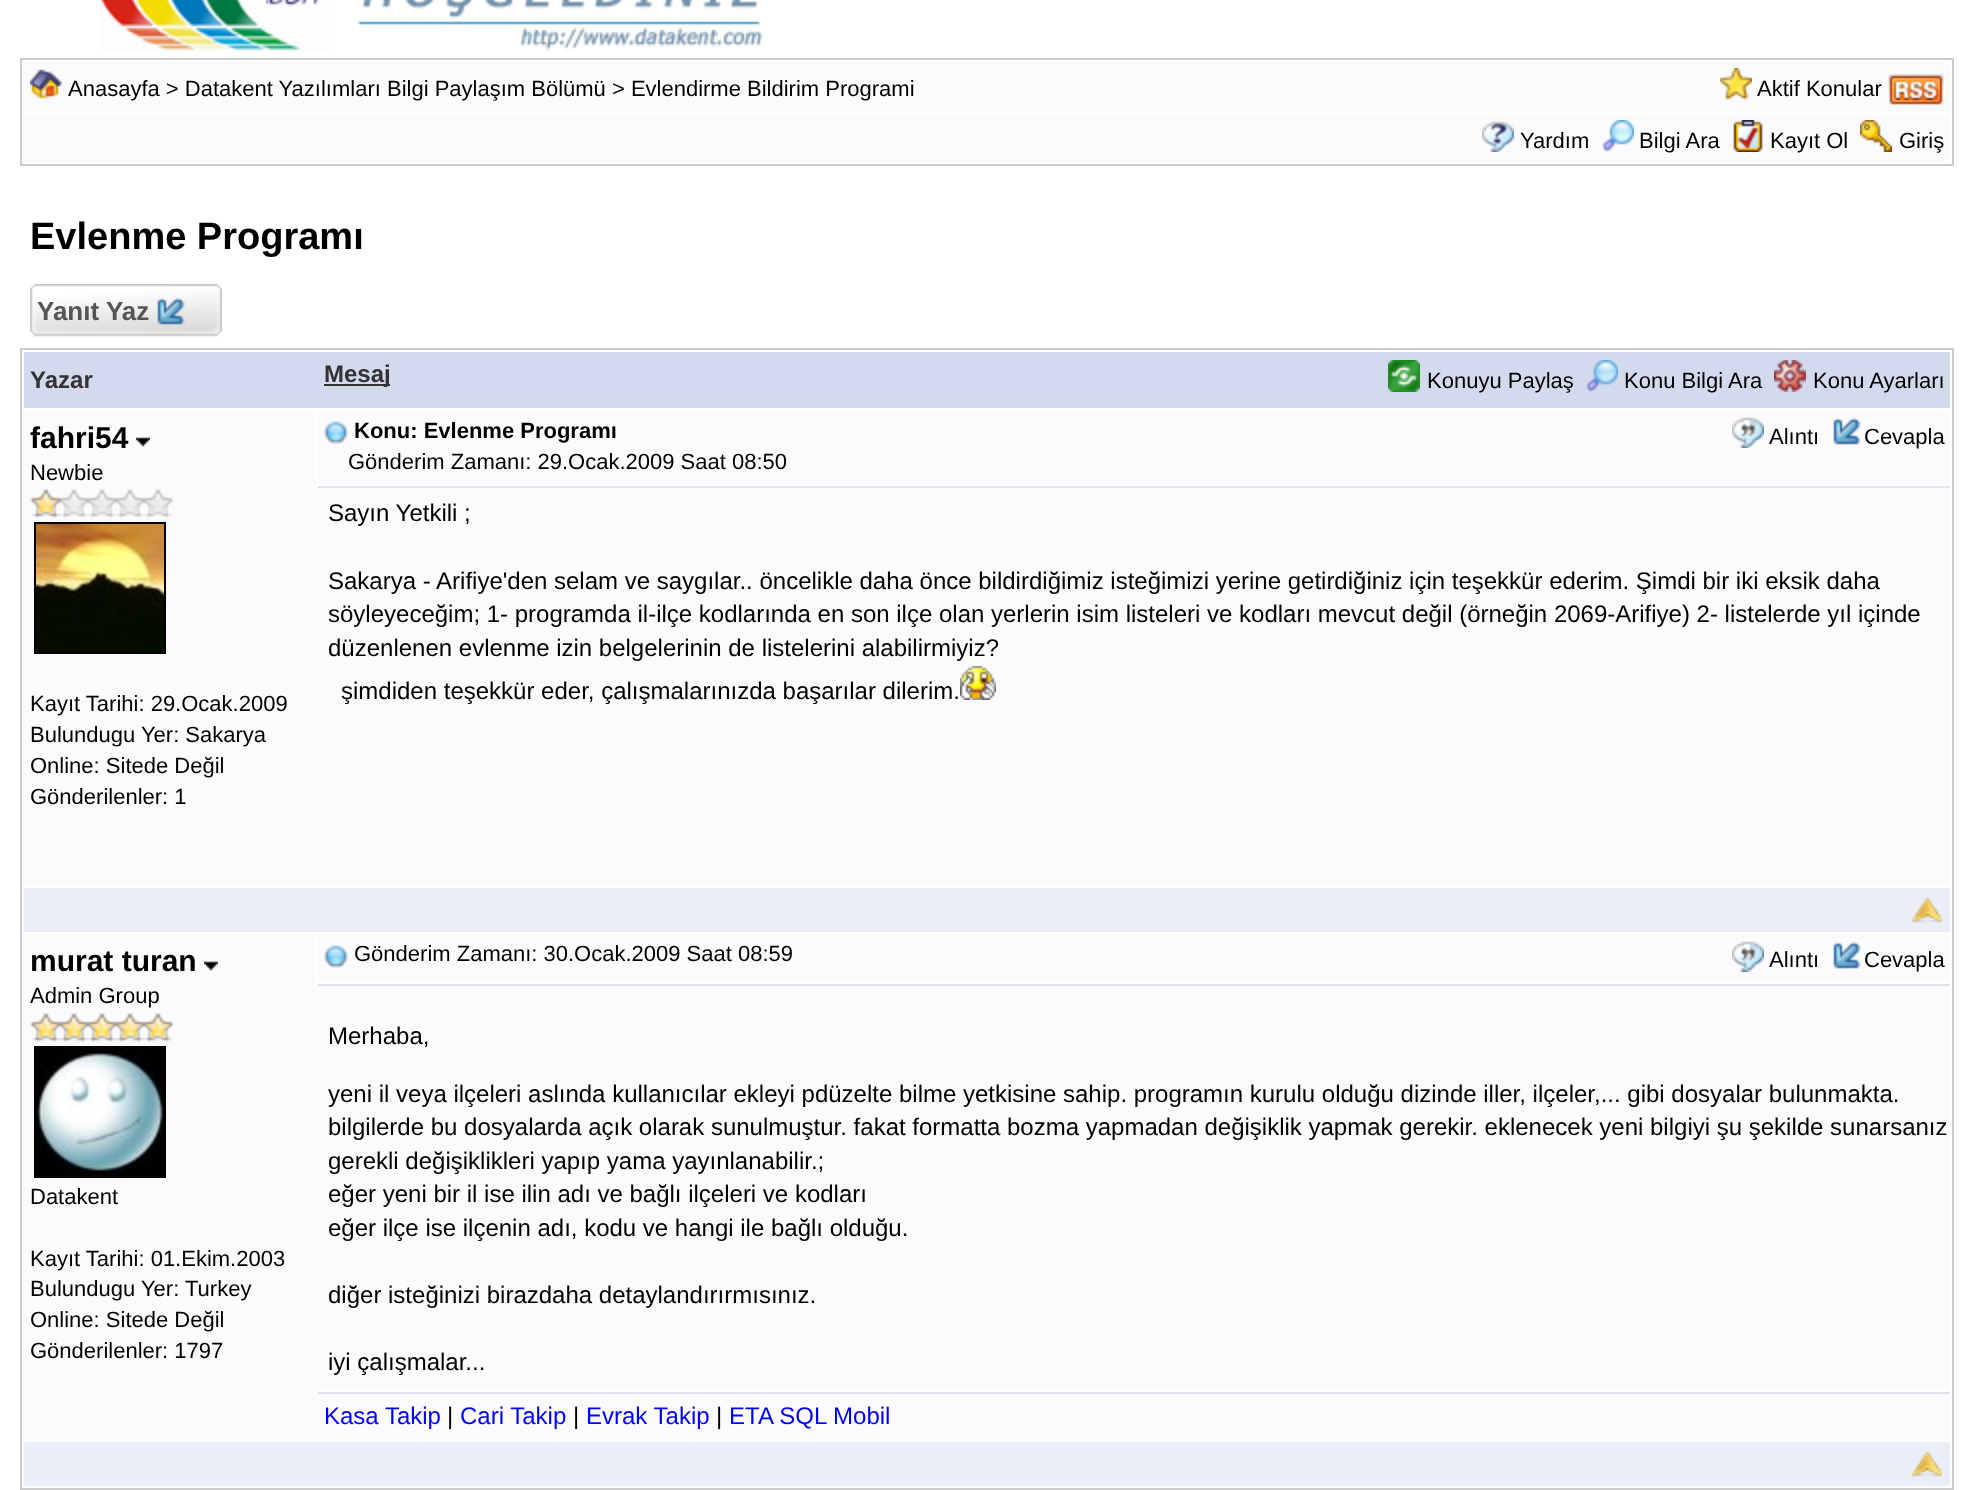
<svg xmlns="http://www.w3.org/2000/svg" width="1974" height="1490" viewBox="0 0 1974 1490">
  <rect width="100%" height="100%" fill="#ffffff"/>
  <image x="100" y="0" width="663" height="51" href="img1.png"/>
  <rect x="21" y="59" width="1932" height="106" fill="none" stroke="#cccccc" stroke-width="2"/>
  <rect x="24" y="62" width="1926" height="50" fill="#fbfbfd"/>
  <image x="30" y="69" width="32" height="30" href="img2.png"/>
  <text x="68" y="96" font-family="Liberation Sans" font-size="22" fill="#000000">Anasayfa &gt; Datakent Yazılımları Bilgi Paylaşım Bölümü &gt; Evlendirme Bildirim Programi</text>
  <image x="1720" y="68" width="32" height="32" href="img3.png"/>
  <text x="1757" y="96" font-family="Liberation Sans" font-size="22" fill="#000000">Aktif Konular</text>
  <image x="1888" y="74" width="56" height="31" href="img4.png"/>
  <rect x="24" y="114" width="1926" height="48" fill="#fbfbfd"/>
  <image x="1482" y="121" width="32" height="31" href="img5.png"/>
  <text x="1520" y="148" font-family="Liberation Sans" font-size="22" fill="#000000">Yardım</text>
  <image x="1602" y="120" width="32" height="32" href="img6.png"/>
  <text x="1639" y="148" font-family="Liberation Sans" font-size="22" fill="#000000">Bilgi Ara</text>
  <image x="1733" y="120" width="30" height="32" href="img7.png"/>
  <text x="1770" y="148" font-family="Liberation Sans" font-size="22" fill="#000000">Kayıt Ol</text>
  <image x="1860" y="120" width="32" height="32" href="img8.png"/>
  <text x="1899" y="148" font-family="Liberation Sans" font-size="22" fill="#000000">Giriş</text>
  <text x="30" y="249" font-family="Liberation Sans" font-size="38" font-weight="bold" fill="#000000">Evlenme Programı</text>
  <image x="30" y="284" width="192" height="53" href="img9.png"/>
  <text x="37" y="320" font-family="Liberation Sans" font-size="26" font-weight="bold" fill="#555555">Yanıt Yaz</text>
  <image x="157" y="297" width="28" height="28" href="img10.png"/>
  <rect x="21" y="349" width="1932" height="1140" fill="none" stroke="#cccccc" stroke-width="2"/>
  <rect x="24" y="352" width="1926" height="56" fill="#d3daed"/>
  <text x="30" y="388" font-family="Liberation Sans" font-size="24" font-weight="bold" fill="#333333">Yazar</text>
  <rect x="324" y="384" width="66" height="2" fill="#333333"/>
  <text x="324" y="382" font-family="Liberation Sans" font-size="24" font-weight="bold" fill="#333333">Mesaj</text>
  <image x="1388" y="360" width="32" height="32" href="img11.png"/>
  <text x="1427" y="388" font-family="Liberation Sans" font-size="22" fill="#000000">Konuyu Paylaş</text>
  <image x="1586" y="360" width="32" height="32" href="img12.png"/>
  <text x="1624" y="388" font-family="Liberation Sans" font-size="22" fill="#000000">Konu Bilgi Ara</text>
  <image x="1774" y="360" width="32" height="32" href="img13.png"/>
  <text x="1813" y="388" font-family="Liberation Sans" font-size="22" fill="#000000">Konu Ayarları</text>
  <rect x="24" y="410" width="292" height="76" fill="#fbfbfd"/>
  <text x="30" y="448" font-family="Liberation Sans" font-size="30" font-weight="bold" fill="#000000">fahri54</text>
  <image x="136" y="437" width="14" height="10" href="img14.png"/>
  <text x="30" y="480" font-family="Liberation Sans" font-size="22" fill="#000000">Newbie</text>
  <rect x="24" y="486" width="1926" height="400" fill="#fbfbfd"/>
  <image x="30" y="488" width="144" height="30" href="img15.png"/>
  <rect x="35" y="523" width="130" height="130" fill="none" stroke="#000000" stroke-width="2"/>
  <image x="36" y="524" width="128" height="128" href="img16.png"/>
  <text x="30" y="711" font-family="Liberation Sans" font-size="22" fill="#000000">Kayıt Tarihi: 29.Ocak.2009</text>
  <text x="30" y="742" font-family="Liberation Sans" font-size="22" fill="#000000">Bulundugu Yer: Sakarya</text>
  <text x="30" y="773" font-family="Liberation Sans" font-size="22" fill="#000000">Online: Sitede Değil</text>
  <text x="30" y="804" font-family="Liberation Sans" font-size="22" fill="#000000">Gönderilenler: 1</text>
  <rect x="318" y="410" width="1632" height="74" fill="#fbfbfd"/>
  <image x="324" y="420" width="24" height="24" href="img17.png"/>
  <text x="354" y="438" font-family="Liberation Sans" font-size="22" font-weight="bold" fill="#000000">Konu: Evlenme Programı</text>
  <image x="1732" y="417" width="32" height="31" href="img18.png"/>
  <text x="1769" y="444" font-family="Liberation Sans" font-size="22" fill="#000000">Alıntı</text>
  <image x="1833" y="417" width="28" height="28" href="img19.png"/>
  <text x="1864" y="444" font-family="Liberation Sans" font-size="22" fill="#000000">Cevapla</text>
  <text x="348" y="469" font-family="Liberation Sans" font-size="22" fill="#000000">Gönderim Zamanı: 29.Ocak.2009 Saat 08:50</text>
  <rect x="318" y="486" width="1632" height="2" fill="#e1e3ec"/>
  <text x="328" y="521" font-family="Liberation Sans" font-size="24" fill="#000000">Sayın Yetkili ;</text>
  <text x="328" y="589" font-family="Liberation Sans" font-size="24" fill="#000000">Sakarya - Arifiye'den selam ve saygılar.. öncelikle daha önce bildirdiğimiz isteğimizi yerine getirdiğiniz için teşekkür ederim. Şimdi bir iki eksik daha</text>
  <text x="328" y="622" font-family="Liberation Sans" font-size="24" fill="#000000">söyleyeceğim; 1- programda il-ilçe kodlarında en son ilçe olan yerlerin isim listeleri ve kodları mevcut değil (örneğin 2069-Arifiye) 2- listelerde yıl içinde</text>
  <text x="328" y="656" font-family="Liberation Sans" font-size="24" fill="#000000">düzenlenen evlenme izin belgelerinin de listelerini alabilirmiyiz?</text>
  <text x="341" y="699" font-family="Liberation Sans" font-size="24" fill="#000000">şimdiden teşekkür eder, çalışmalarınızda başarılar dilerim.</text>
  <image x="960" y="666" width="36" height="34" href="img20.png"/>
  <rect x="24" y="888" width="1926" height="44" fill="#ebeef7"/>
  <image x="1912" y="897" width="31" height="26" href="img21.png"/>
  <rect x="24" y="934" width="292" height="458" fill="#fbfbfd"/>
  <text x="30" y="971" font-family="Liberation Sans" font-size="30" font-weight="bold" fill="#000000">murat turan</text>
  <image x="204" y="961" width="14" height="10" href="img14.png"/>
  <text x="30" y="1003" font-family="Liberation Sans" font-size="22" fill="#000000">Admin Group</text>
  <image x="30" y="1012" width="144" height="30" href="img22.png"/>
  <rect x="35" y="1047" width="130" height="130" fill="none" stroke="#000000" stroke-width="2"/>
  <image x="36" y="1048" width="128" height="128" href="img23.png"/>
  <text x="30" y="1204" font-family="Liberation Sans" font-size="22" fill="#000000">Datakent</text>
  <text x="30" y="1266" font-family="Liberation Sans" font-size="22" fill="#000000">Kayıt Tarihi: 01.Ekim.2003</text>
  <text x="30" y="1296" font-family="Liberation Sans" font-size="22" fill="#000000">Bulundugu Yer: Turkey</text>
  <text x="30" y="1327" font-family="Liberation Sans" font-size="22" fill="#000000">Online: Sitede Değil</text>
  <text x="30" y="1358" font-family="Liberation Sans" font-size="22" fill="#000000">Gönderilenler: 1797</text>
  <rect x="318" y="934" width="1632" height="48" fill="#fbfbfd"/>
  <image x="324" y="944" width="24" height="24" href="img17.png"/>
  <text x="354" y="961" font-family="Liberation Sans" font-size="22" fill="#000000">Gönderim Zamanı: 30.Ocak.2009 Saat 08:59</text>
  <image x="1732" y="941" width="32" height="31" href="img18.png"/>
  <text x="1769" y="967" font-family="Liberation Sans" font-size="22" fill="#000000">Alıntı</text>
  <image x="1833" y="941" width="28" height="28" href="img19.png"/>
  <text x="1864" y="967" font-family="Liberation Sans" font-size="22" fill="#000000">Cevapla</text>
  <rect x="316" y="984" width="1634" height="406" fill="#fbfbfd"/>
  <rect x="318" y="984" width="1632" height="2" fill="#e1e3ec"/>
  <text x="328" y="1044" font-family="Liberation Sans" font-size="24" fill="#000000">Merhaba,</text>
  <text x="328" y="1102" font-family="Liberation Sans" font-size="24" fill="#000000">yeni il veya ilçeleri aslında kullanıcılar ekleyi pdüzelte bilme yetkisine sahip. programın kurulu olduğu dizinde iller, ilçeler,... gibi dosyalar bulunmakta.</text>
  <text x="328" y="1135" font-family="Liberation Sans" font-size="24" fill="#000000">bilgilerde bu dosyalarda açık olarak sunulmuştur. fakat formatta bozma yapmadan değişiklik yapmak gerekir. eklenecek yeni bilgiyi şu şekilde sunarsanız</text>
  <text x="328" y="1169" font-family="Liberation Sans" font-size="24" fill="#000000">gerekli değişiklikleri yapıp yama yayınlanabilir.;</text>
  <text x="328" y="1202" font-family="Liberation Sans" font-size="24" fill="#000000">eğer yeni bir il ise ilin adı ve bağlı ilçeleri ve kodları</text>
  <text x="328" y="1236" font-family="Liberation Sans" font-size="24" fill="#000000">eğer ilçe ise ilçenin adı, kodu ve hangi ile bağlı olduğu.</text>
  <text x="328" y="1303" font-family="Liberation Sans" font-size="24" fill="#000000">diğer isteğinizi birazdaha detaylandırırmısınız.</text>
  <text x="328" y="1370" font-family="Liberation Sans" font-size="24" fill="#000000">iyi çalışmalar...</text>
  <rect x="24" y="1392" width="1926" height="48" fill="#fbfbfd"/>
  <rect x="318" y="1392" width="1632" height="2" fill="#e1e3ec"/>
  <text x="324" y="1424" font-family="Liberation Sans" font-size="24" fill="#0000ff">Kasa Takip</text>
  <text x="447" y="1424" font-family="Liberation Sans" font-size="24" fill="#000000">|</text>
  <text x="460" y="1424" font-family="Liberation Sans" font-size="24" fill="#0000ff">Cari Takip</text>
  <text x="573" y="1424" font-family="Liberation Sans" font-size="24" fill="#000000">|</text>
  <text x="586" y="1424" font-family="Liberation Sans" font-size="24" fill="#0000ff">Evrak Takip</text>
  <text x="716" y="1424" font-family="Liberation Sans" font-size="24" fill="#000000">|</text>
  <text x="729" y="1424" font-family="Liberation Sans" font-size="24" fill="#0000ff">ETA SQL Mobil</text>
  <rect x="24" y="1442" width="1926" height="44" fill="#ebeef7"/>
  <image x="1912" y="1451" width="31" height="26" href="img21.png"/>
</svg>
